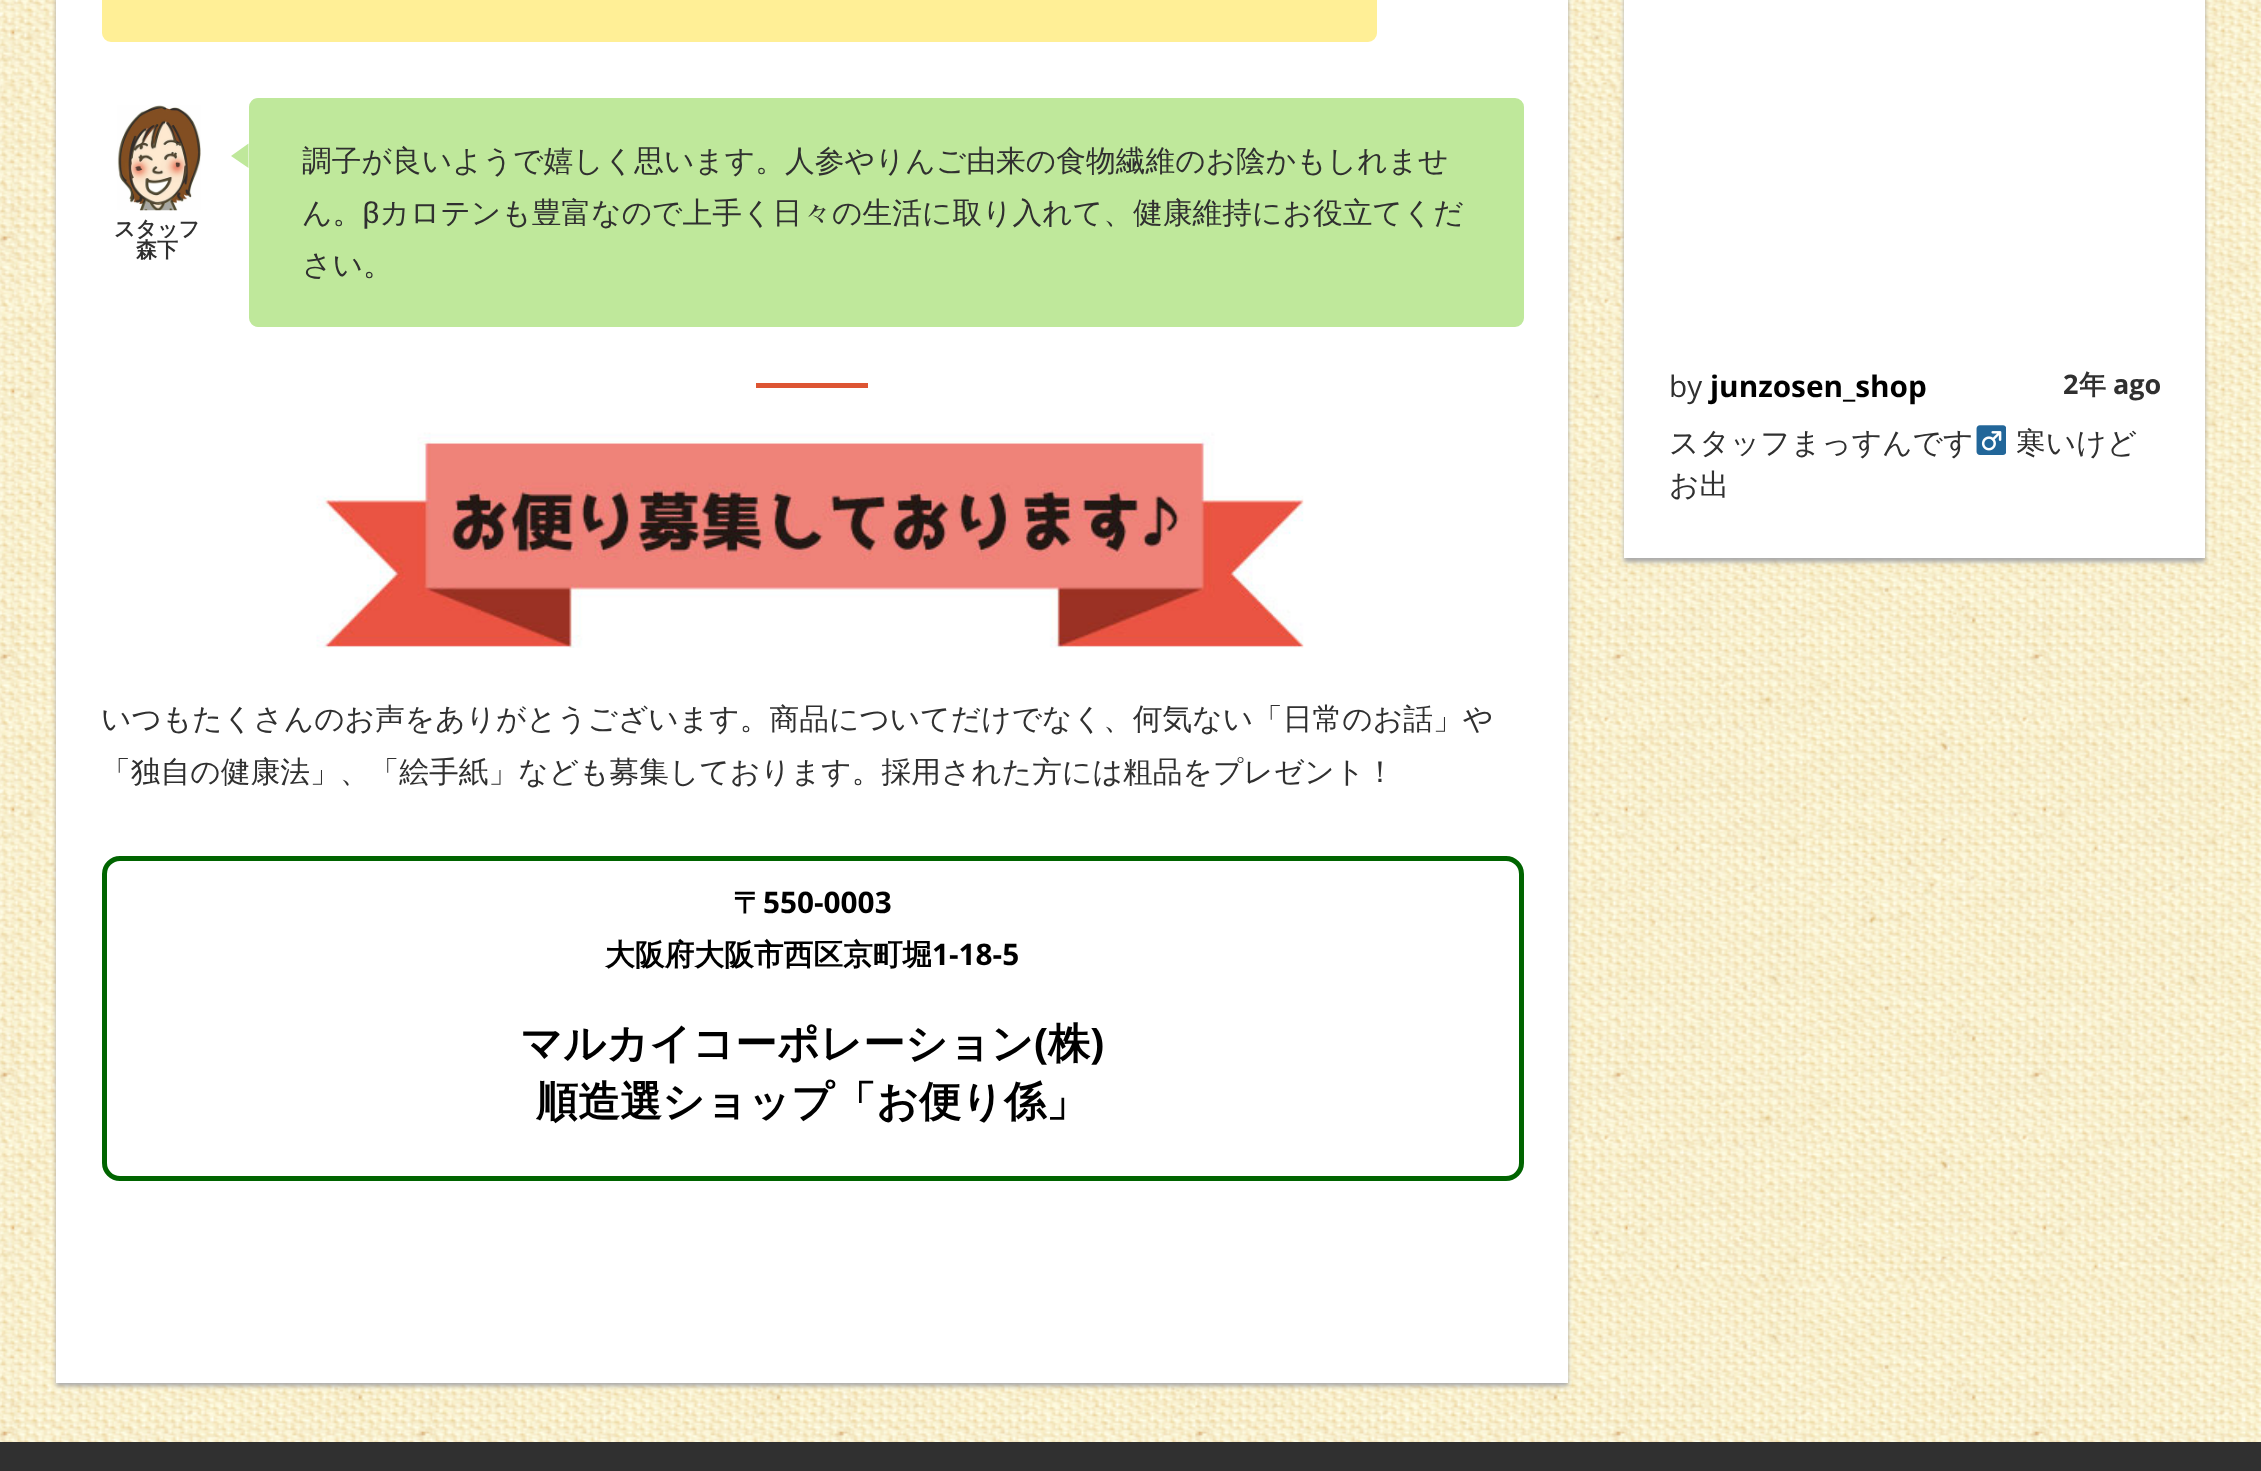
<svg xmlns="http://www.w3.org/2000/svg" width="2261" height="1471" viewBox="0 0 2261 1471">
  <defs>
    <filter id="blur1" x="-50%" y="-200%" width="200%" height="500%"><feGaussianBlur stdDeviation="2"/></filter>
  </defs>
  <rect width="100%" height="100%" fill="#ffffff"/>
  <image x="0" y="0" width="2261" height="1442" href="img1.png"/>
  <rect x="56" y="-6" width="1512" height="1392" fill="#aaaaaa" filter="url(#blur1)"/>
  <rect x="56" y="0" width="1512" height="1383" fill="#ffffff"/>
  <rect x="103" y="-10" width="1273" height="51" rx="8" fill="#ffef96" stroke="#ffef96" stroke-width="2"/>
  <image x="117" y="105" width="84" height="106" href="img2.png"/>
  <text x="114" y="236" font-family="WenQuanYi Zen Hei" font-size="21" font-weight="bold" fill="#303030">スタッフ</text>
  <text x="136" y="257" font-family="WenQuanYi Zen Hei" font-size="21" font-weight="bold" fill="#303030">森下</text>
  <rect x="250" y="99" width="1273" height="227" rx="8" fill="#bfe89b" stroke="#bfe89b" stroke-width="2"/>
  <path d="M248.5 143.5V168L231 156Z" fill="#bfe89b"/>
  <text x="302" y="171" font-family="WenQuanYi Zen Hei" font-size="29.75" font-weight="500" fill="#303030">調子が良いようで嬉しく思います。人参やりんご由来の食物繊維のお陰かもしれませ</text>
  <text x="302" y="223" font-family="WenQuanYi Zen Hei" font-size="29.75" font-weight="500" fill="#303030">ん。βカロテンも豊富なので上手く日々の生活に取り入れて、健康維持にお役立てくだ</text>
  <text x="302" y="275" font-family="WenQuanYi Zen Hei" font-size="29.75" font-weight="500" fill="#303030">さい。</text>
  <rect x="756" y="383" width="112" height="5" fill="#dd5533"/>
  <image x="316" y="432" width="988" height="216" href="img3.png"/>
  <text x="101" y="729" font-family="WenQuanYi Zen Hei" font-size="29.75" font-weight="500" fill="#303030">いつもたくさんのお声をありがとうございます。商品についてだけでなく、何気ない「日常のお話」や</text>
  <text x="101" y="782" font-family="WenQuanYi Zen Hei" font-size="29.75" font-weight="500" fill="#303030">「独自の健康法」、「絵手紙」なども募集しております。採用された方には粗品をプレゼント！</text>
  <rect x="104.5" y="858.5" width="1417" height="320" rx="15.5" fill="none" stroke="#006400" stroke-width="5"/>
  <text x="733" y="913" font-family="WenQuanYi Zen Hei" font-size="29.75" font-weight="bold" fill="#000000">〒</text>
  <text x="763" y="913" font-family="Open Sans" font-size="29.75" font-weight="bold" fill="#000000">550-0003</text>
  <text x="605" y="965" font-family="WenQuanYi Zen Hei" font-size="29.75" font-weight="bold" fill="#000000">大阪府大阪市西区京町堀</text>
  <text x="932" y="965" font-family="Open Sans" font-size="29.75" font-weight="bold" fill="#000000">1-18-5</text>
  <text x="520" y="1058" font-family="WenQuanYi Zen Hei" font-size="42" font-weight="bold" fill="#000000">マルカイコーポレーション</text>
  <text x="1034" y="1058" font-family="Open Sans" font-size="42" font-weight="bold" fill="#000000">(</text>
  <text x="1048" y="1058" font-family="WenQuanYi Zen Hei" font-size="42" font-weight="bold" fill="#000000">株</text>
  <text x="1090" y="1058" font-family="Open Sans" font-size="42" font-weight="bold" fill="#000000">)</text>
  <text x="536" y="1116" font-family="WenQuanYi Zen Hei" font-size="42" font-weight="bold" fill="#000000">順造選ショップ「お便り係」</text>
  <rect x="1624" y="-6" width="581" height="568" fill="#aaaaaa" filter="url(#blur1)"/>
  <rect x="1624" y="0" width="581" height="558" fill="#ffffff"/>
  <text x="1669" y="397" font-family="Open Sans" font-size="29.75" fill="#303030">by</text>
  <text x="1710" y="397" font-family="Open Sans" font-size="29.75" font-weight="bold" fill="#000000">junzosen_shop</text>
  <text x="2063" y="394" font-family="Open Sans" font-size="27" font-weight="bold" fill="#303030">2</text>
  <text x="2079" y="394" font-family="WenQuanYi Zen Hei" font-size="27" font-weight="bold" fill="#303030">年</text>
  <text x="2113" y="394" font-family="Open Sans" font-size="27" font-weight="bold" fill="#303030">ago</text>
  <text x="1669" y="453" font-family="WenQuanYi Zen Hei" font-size="29.75" font-weight="500" fill="#303030">スタッフまっすんです‍</text>
  <image x="1976" y="425" width="30" height="30" href="img4.png"/>
  <text x="2016" y="453" font-family="WenQuanYi Zen Hei" font-size="29.75" font-weight="500" fill="#303030">寒いけど</text>
  <text x="1669" y="495" font-family="WenQuanYi Zen Hei" font-size="29.75" font-weight="500" fill="#303030">お出</text>
  <rect x="0" y="1442" width="2261" height="29" fill="#303030"/>
</svg>
